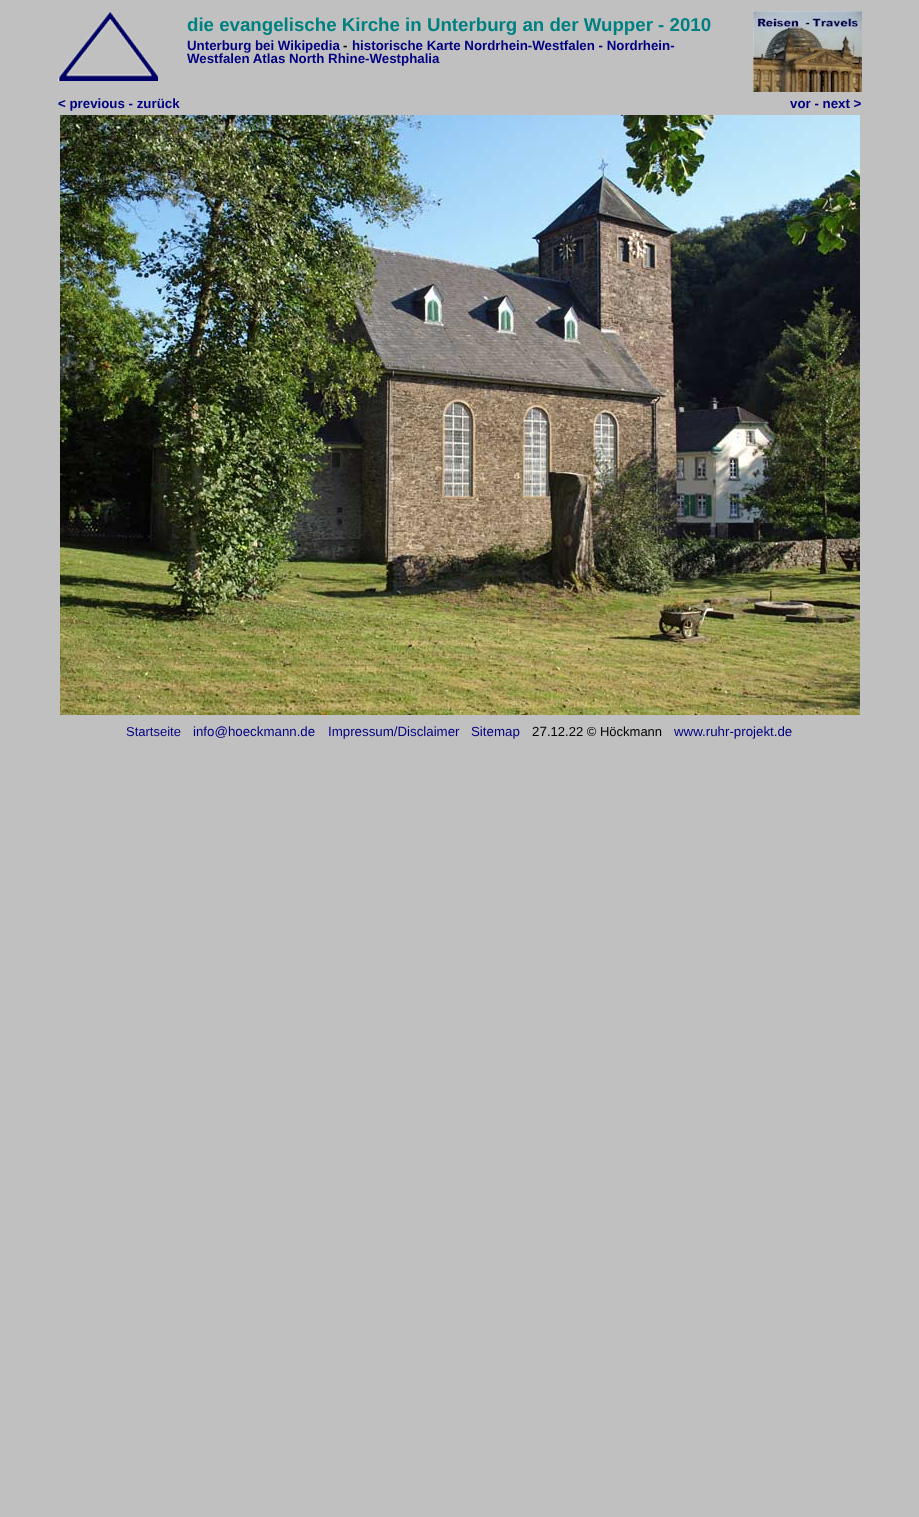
<svg xmlns="http://www.w3.org/2000/svg" width="919" height="1517" viewBox="0 0 919 1517">
  <rect width="100%" height="100%" fill="#c0c0c0"/>
  <image x="58" y="12" width="100" height="69" href="img1.png"/>
  <text x="187" y="31" font-family="Liberation Sans" font-size="18.7" font-weight="bold" fill="#008080">die evangelische Kirche in Unterburg an der Wupper - 2010</text>
  <text x="187" y="50" font-family="Liberation Sans" font-size="13.3" font-weight="bold" fill="#000080">Unterburg bei Wikipedia</text>
  <text x="343" y="50" font-family="Liberation Sans" font-size="13.3" font-weight="bold" fill="#000000">-</text>
  <text x="352" y="50" font-family="Liberation Sans" font-size="13.3" font-weight="bold" fill="#000080">historische Karte Nordrhein-Westfalen - Nordrhein-</text>
  <text x="187" y="63" font-family="Liberation Sans" font-size="13.3" font-weight="bold" fill="#000080">Westfalen Atlas North Rhine-Westphalia</text>
  <image x="753" y="11" width="109" height="81" href="img2.png"/>
  <text x="58" y="108" font-family="Liberation Sans" font-size="13.3" font-weight="bold" fill="#000080">&lt; previous - zurück</text>
  <text x="790" y="108" font-family="Liberation Sans" font-size="13.3" font-weight="bold" fill="#000080">vor - next &gt;</text>
  <image x="60" y="115" width="800" height="600" href="img3.png"/>
  <text x="126" y="736" font-family="Liberation Sans" font-size="13" fill="#000080">Startseite</text>
  <text x="193" y="736" font-family="Liberation Sans" font-size="13.3" fill="#000080">info@hoeckmann.de</text>
  <text x="328" y="736" font-family="Liberation Sans" font-size="13.3" fill="#000080">Impressum/Disclaimer</text>
  <text x="471" y="736" font-family="Liberation Sans" font-size="13.3" fill="#000080">Sitemap</text>
  <text x="532" y="736" font-family="Liberation Sans" font-size="13.3" fill="#000000">27</text>
  <text x="547" y="736" font-family="Liberation Sans" font-size="13" fill="#000000">.12.22 © Höckmann</text>
  <text x="674" y="736" font-family="Liberation Sans" font-size="13.3" fill="#000080">www.ruhr-projekt.de</text>
</svg>
